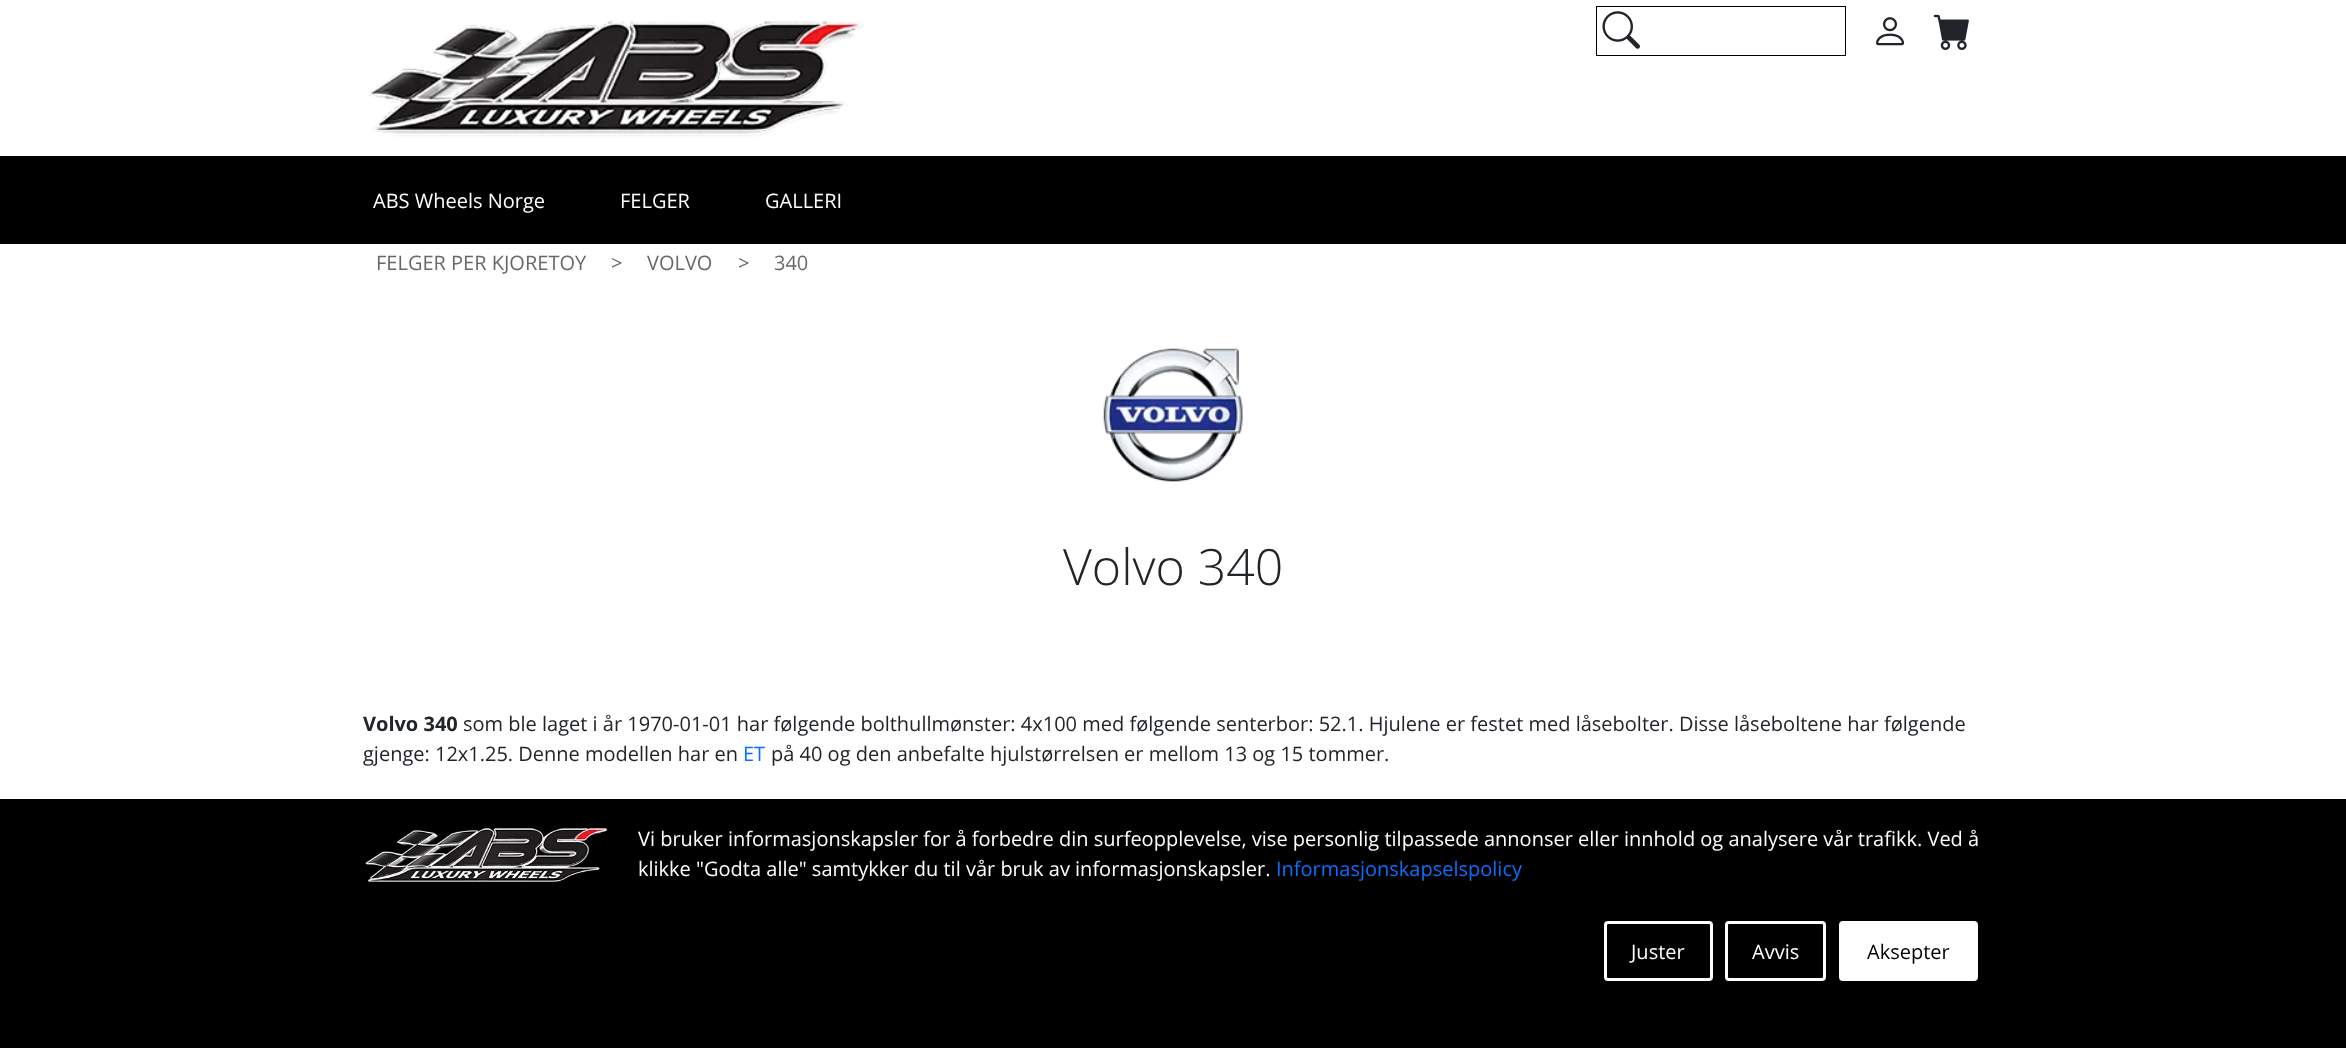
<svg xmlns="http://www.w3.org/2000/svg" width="2346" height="1048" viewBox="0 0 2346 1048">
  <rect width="100%" height="100%" fill="#ffffff"/>
  <image x="367" y="21" width="497" height="116" href="img1.png"/>
  <rect x="1596.5" y="6.5" width="249" height="49" fill="none" stroke="#000000"/>
  <image x="1602" y="11" width="38" height="38" href="img2.png"/>
  <image x="1876" y="17" width="29" height="29" href="img3.png"/>
  <image x="1933" y="14" width="36" height="36" href="img4.png"/>
  <rect x="0" y="156" width="2346" height="88" fill="#000000"/>
  <text x="373" y="208" font-family="Open Sans" font-size="20" fill="#ffffff">ABS Wheels Norge</text>
  <text x="620" y="208" font-family="Open Sans" font-size="20" fill="#ffffff">FELGER</text>
  <text x="765" y="208" font-family="Open Sans" font-size="20" fill="#ffffff">GALLERI</text>
  <text x="376" y="270" font-family="Open Sans" font-size="20" fill="#686868">FELGER PER KJORETOY</text>
  <text x="611" y="270" font-family="Open Sans" font-size="20" fill="#686868">&gt;</text>
  <text x="647" y="270" font-family="Open Sans" font-size="20" fill="#686868">VOLVO</text>
  <text x="738" y="270" font-family="Open Sans" font-size="20" fill="#686868">&gt;</text>
  <text x="774" y="270" font-family="Open Sans" font-size="20" fill="#686868">340</text>
  <image x="1103" y="348" width="140" height="134" href="img5.png"/>
  <text x="1063" y="585" font-family="Open Sans" font-size="50" font-weight="300" fill="#212529">Volvo 340</text>
  <text x="363" y="731" font-family="Open Sans" font-size="20" font-weight="bold" fill="#212529">Volvo 340</text>
  <text x="463" y="731" font-family="Open Sans" font-size="20" fill="#212529">som ble laget i år 1970-01-01 har følgende bolthullmønster: 4x100 med følgende senterbor: 52.1. Hjulene er festet med låsebolter. Disse låseboltene har følgende</text>
  <text x="363" y="761" font-family="Open Sans" font-size="20" fill="#212529">gjenge: 12x1.25. Denne modellen har en</text>
  <text x="743" y="761" font-family="Open Sans" font-size="20" fill="#0d6efd">ET</text>
  <text x="771" y="761" font-family="Open Sans" font-size="20" fill="#212529">på 40 og den anbefalte hjulstørrelsen er mellom 13 og 15 tommer.</text>
  <rect x="0" y="799" width="2346" height="249" fill="#000000"/>
  <image x="365" y="828" width="243" height="54" href="img6.png"/>
  <text x="638" y="846" font-family="Open Sans" font-size="20" fill="#ffffff">Vi bruker informasjonskapsler for å forbedre din surfeopplevelse, vise personlig tilpassede annonser eller innhold og analysere vår trafikk. Ved å</text>
  <text x="638" y="876" font-family="Open Sans" font-size="20" fill="#ffffff">klikke "Godta alle" samtykker du til vår bruk av informasjonskapsler.</text>
  <text x="1276" y="876" font-family="Open Sans" font-size="20" fill="#0d6efd">Informasjonskapselspolicy</text>
  <rect x="1605.5" y="922.5" width="106" height="57" rx="2.5" fill="none" stroke="#ffffff" stroke-width="3"/>
  <text x="1631" y="959" font-family="Open Sans" font-size="20" fill="#ffffff">Juster</text>
  <rect x="1726.5" y="922.5" width="98" height="57" rx="2.5" fill="none" stroke="#ffffff" stroke-width="3"/>
  <text x="1752" y="959" font-family="Open Sans" font-size="20" fill="#ffffff">Avvis</text>
  <rect x="1840.5" y="922.5" width="136" height="57" rx="2.5" fill="#ffffff" stroke="#ffffff" stroke-width="3"/>
  <text x="1867" y="959" font-family="Open Sans" font-size="20" fill="#000000">Aksepter</text>
</svg>
